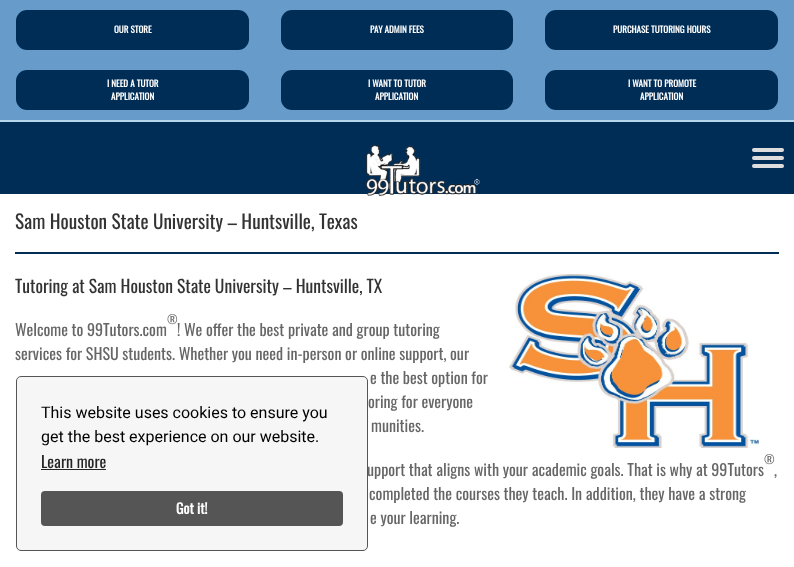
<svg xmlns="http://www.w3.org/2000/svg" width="794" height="567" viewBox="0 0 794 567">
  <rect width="100%" height="100%" fill="#ffffff"/>
  <rect x="0" y="0" width="794" height="120" fill="#679cca"/>
  <rect x="16" y="10" width="233" height="40" rx="11" fill="#002d56"/>
  <text x="114" y="33" font-family="Oswald" font-size="9" font-weight="bold" fill="#ffffff">OUR STORE</text>
  <rect x="281" y="10" width="232" height="40" rx="11" fill="#002d56"/>
  <text x="370" y="33" font-family="Oswald" font-size="9" font-weight="bold" fill="#ffffff">PAY ADMIN FEES</text>
  <rect x="545" y="10" width="233" height="40" rx="11" fill="#002d56"/>
  <text x="613" y="33" font-family="Oswald" font-size="9" font-weight="bold" fill="#ffffff">PURCHASE TUTORING HOURS</text>
  <rect x="16" y="70" width="233" height="40" rx="11" fill="#002d56"/>
  <text x="107" y="87" font-family="Oswald" font-size="9" font-weight="bold" fill="#ffffff">I NEED A TUTOR</text>
  <text x="111" y="100" font-family="Oswald" font-size="9" font-weight="bold" fill="#ffffff">APPLICATION</text>
  <rect x="281" y="70" width="232" height="40" rx="11" fill="#002d56"/>
  <text x="368" y="87" font-family="Oswald" font-size="9" font-weight="bold" fill="#ffffff">I WANT TO TUTOR</text>
  <text x="375" y="100" font-family="Oswald" font-size="9" font-weight="bold" fill="#ffffff">APPLICATION</text>
  <rect x="545" y="70" width="233" height="40" rx="11" fill="#002d56"/>
  <text x="628" y="87" font-family="Oswald" font-size="9" font-weight="bold" fill="#ffffff">I WANT TO PROMOTE</text>
  <text x="640" y="100" font-family="Oswald" font-size="9" font-weight="bold" fill="#ffffff">APPLICATION</text>
  <rect x="0" y="122" width="794" height="72" fill="#002d56"/>
  <image x="366" y="145" width="114" height="52" href="img1.png"/>
  <rect x="0" y="120" width="794" height="2" fill="#b5d5ea"/>
  <rect x="752" y="148" width="32" height="4" rx="2" fill="#dddddd"/>
  <rect x="752" y="156" width="32" height="4" rx="2" fill="#dddddd"/>
  <rect x="752" y="164" width="32" height="4" rx="2" fill="#dddddd"/>
  <text x="15" y="229" font-family="Oswald" font-size="19.25" fill="#333333">Sam Houston State University – Huntsville, Texas</text>
  <rect x="15" y="252" width="764" height="2" fill="#002d56"/>
  <text x="15" y="293" font-family="Oswald" font-size="17.6" fill="#333333">Tutoring at Sam Houston State University – Huntsville, TX</text>
  <image x="509" y="274" width="250" height="174" href="img2.png"/>
  <text x="167" y="324" font-family="Oswald" font-size="12" fill="#666666">®</text>
  <text x="15" y="336" font-family="Oswald" font-size="16" fill="#666666">Welcome to 99Tutors.com</text>
  <text x="177" y="336" font-family="Oswald" font-size="16" fill="#666666">! We offer the best private and group tutoring</text>
  <text x="15" y="360" font-family="Oswald" font-size="16" fill="#666666">services for SHSU students. Whether you need in-person or online support, our</text>
  <text x="370" y="384" font-family="Oswald" font-size="16" fill="#666666">e the best option for</text>
  <text x="368" y="408" font-family="Oswald" font-size="16" fill="#666666">oring for everyone</text>
  <text x="371" y="432" font-family="Oswald" font-size="16" fill="#666666">munities.</text>
  <text x="764" y="464" font-family="Oswald" font-size="12" fill="#666666">®</text>
  <text x="367" y="476" font-family="Oswald" font-size="16" fill="#666666">upport that aligns with your academic goals. That is why at 99Tutors</text>
  <text x="774" y="476" font-family="Oswald" font-size="16" fill="#666666">,</text>
  <text x="369" y="500" font-family="Oswald" font-size="16" fill="#666666">completed the courses they teach. In addition, they have a strong</text>
  <text x="370" y="524" font-family="Oswald" font-size="16" fill="#666666">e your learning.</text>
  <rect x="16.5" y="376.5" width="351" height="174" rx="4.5" fill="#f6f6f6" stroke="#555555"/>
  <text x="41" y="418" font-family="Roboto" font-size="16" fill="#000000">This website uses cookies to ensure you</text>
  <text x="41" y="442" font-family="Roboto" font-size="16" fill="#000000">get the best experience on our website.</text>
  <text x="41" y="468" font-family="Oswald" font-size="16" fill="#252525">Learn more</text>
  <rect x="41" y="469" width="65" height="1" fill="#252525"/>
  <rect x="41" y="491" width="302" height="35" rx="4" fill="#555555"/>
  <text x="176" y="514" font-family="Oswald" font-size="14" font-weight="bold" fill="#ffffff">Got it!</text>
</svg>
